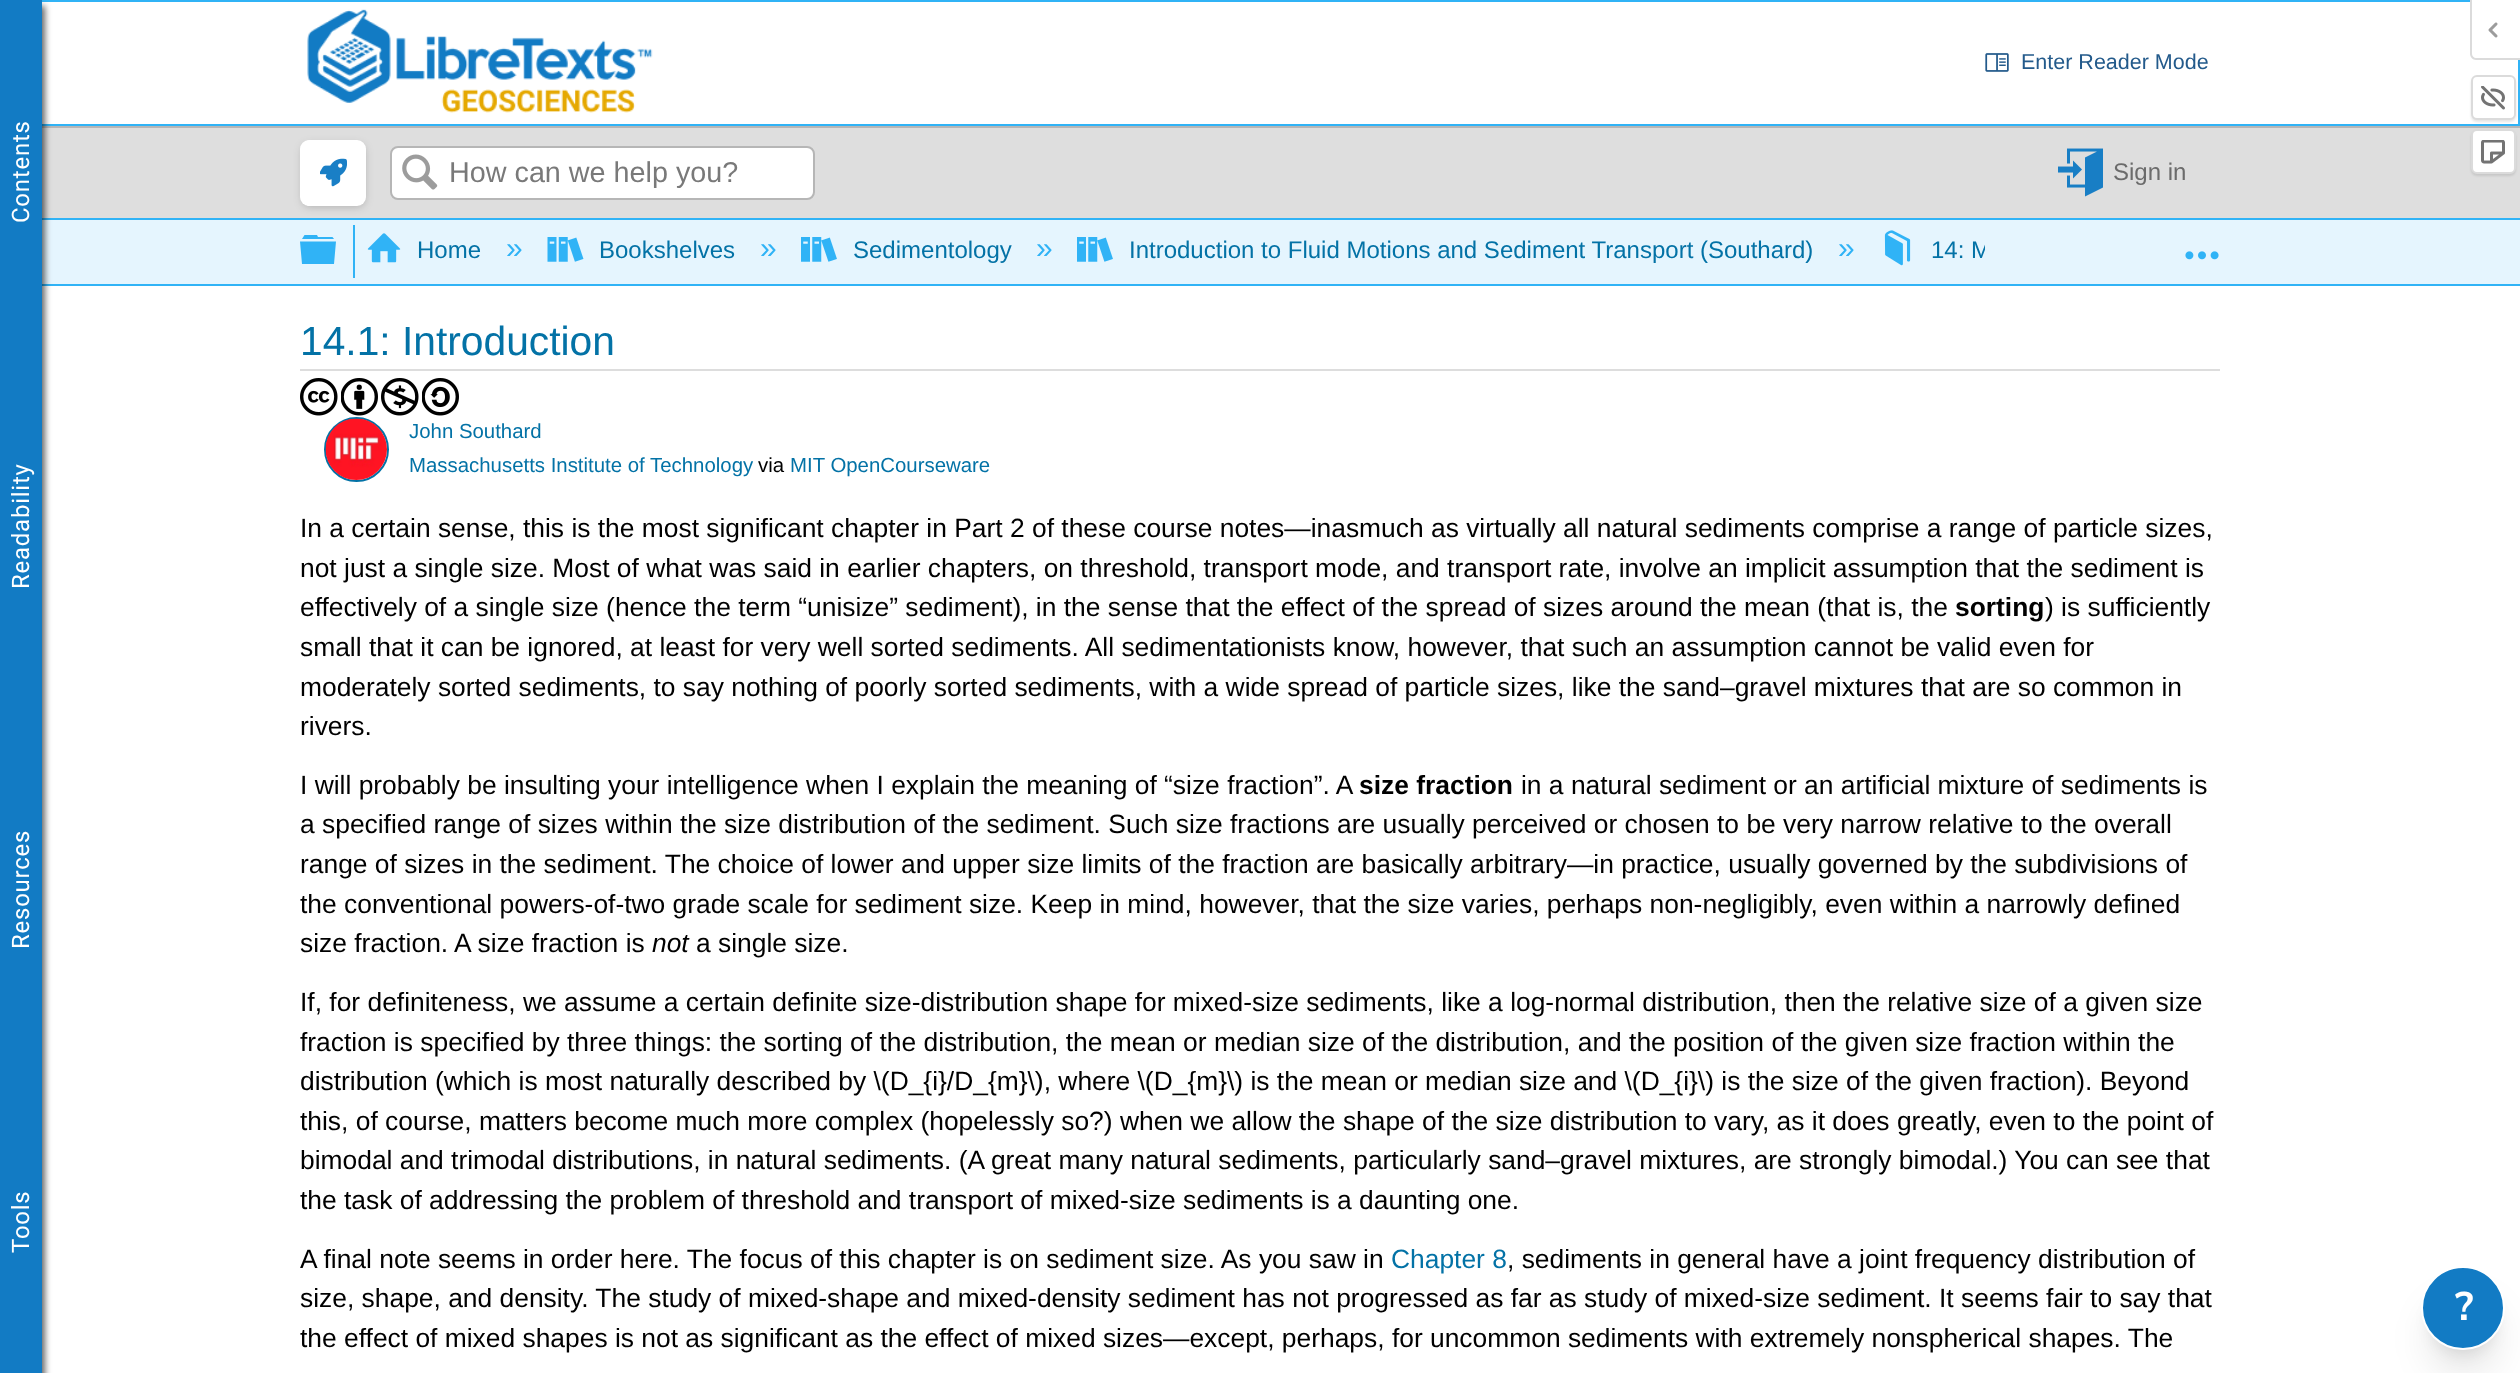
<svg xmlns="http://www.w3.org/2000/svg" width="2520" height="1373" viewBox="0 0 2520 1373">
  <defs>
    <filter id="blur1" x="-50%" y="-200%" width="200%" height="500%"><feGaussianBlur stdDeviation="3"/></filter>
    <filter id="blur2" x="-50%" y="-200%" width="200%" height="500%"><feGaussianBlur stdDeviation="4"/></filter>
    <clipPath id="clip1"><rect x="354" y="225" width="1631" height="53"/></clipPath>
    <filter id="blur3" x="-50%" y="-200%" width="200%" height="500%"><feGaussianBlur stdDeviation="7.5"/></filter>
    <filter id="blur4" x="-50%" y="-200%" width="200%" height="500%"><feGaussianBlur stdDeviation="19"/></filter>
    <filter id="blur5" x="-50%" y="-200%" width="200%" height="500%"><feGaussianBlur stdDeviation="1"/></filter>
  </defs>
  <rect width="100%" height="100%" fill="#ffffff"/>
  <rect x="1" y="1" width="2518" height="124" fill="none" stroke="#30b3f6" stroke-width="2"/>
  <rect x="42" y="128" width="2478" height="90" fill="#dedede"/>
  <rect x="42" y="126" width="2478" height="2" fill="#b6b6b6"/>
  <rect x="42" y="220" width="2478" height="64" fill="#e5f5fe"/>
  <rect x="42" y="218" width="2478" height="2" fill="#30b3f6"/>
  <rect x="42" y="284" width="2478" height="2" fill="#30b3f6"/>
  <rect x="3" y="6" width="42" height="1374" fill="#000000" fill-opacity="0.6" filter="url(#blur1)"/>
  <rect x="0" y="0" width="42" height="1373" fill="#127bc4"/>
  <text x="29" y="223" transform="rotate(-90 29 223)" font-family="Roboto" font-size="24" letter-spacing="0.75" fill="#ffffff">Contents</text>
  <text x="29" y="589" transform="rotate(-90 29 589)" font-family="Roboto" font-size="24" letter-spacing="0.75" fill="#ffffff">Readability</text>
  <text x="29" y="949" transform="rotate(-90 29 949)" font-family="Roboto" font-size="24" letter-spacing="0.75" fill="#ffffff">Resources</text>
  <text x="29" y="1253" transform="rotate(-90 29 1253)" font-family="Roboto" font-size="24" letter-spacing="0.75" fill="#ffffff">Tools</text>
  <image x="307" y="9" width="346" height="104" href="img1.png"/>
  <image x="1985" y="53" width="24" height="19" href="img2.png"/>
  <text x="2021" y="69" font-family="Liberation Sans" font-size="21.5" fill="#235a8b">Enter Reader Mode</text>
  <rect x="302" y="144" width="63" height="63" rx="8" fill="#080808" fill-opacity="0.2" filter="url(#blur2)"/>
  <rect x="300" y="140" width="66" height="66" rx="9" fill="#ffffff"/>
  <image x="320" y="158" width="27" height="29" href="img3.png"/>
  <rect x="391" y="147" width="423" height="52" rx="7" fill="#ffffff" stroke="#b6b6b6" stroke-width="2"/>
  <image x="402" y="154" width="36" height="36" href="img4.png"/>
  <text x="449" y="182" font-family="Liberation Sans" font-size="28.75" fill="#797979">How can we help you?</text>
  <image x="2058" y="148" width="45" height="49" href="img5.png"/>
  <text x="2113" y="180" font-family="Liberation Sans" font-size="24" fill="#6b6b6b">Sign in</text>
  <path d="M300 241.5H336L334 264H302ZM332.5 237L334 239H302L304.5 235H317L318 237Z" fill="#30b3f6"/>
  <rect x="353" y="225" width="2" height="53" fill="#30b3f6"/>
  <image x="367" y="233" width="34" height="30" href="img6.png"/>
  <text x="417" y="258" font-family="Liberation Sans" font-size="24" fill="#0372a6">Home</text>
  <text x="506" y="258" font-family="Liberation Sans" font-size="30" fill="#30b3f6">»</text>
  <image x="547" y="237" width="37" height="25" href="img7.png"/>
  <text x="599" y="258" font-family="Liberation Sans" font-size="24" fill="#0372a6">Bookshelves</text>
  <text x="760" y="258" font-family="Liberation Sans" font-size="30" fill="#30b3f6">»</text>
  <image x="801" y="237" width="36" height="25" href="img8.png"/>
  <text x="853" y="258" font-family="Liberation Sans" font-size="24" fill="#0372a6">Sedimentology</text>
  <text x="1036" y="258" font-family="Liberation Sans" font-size="30" fill="#30b3f6">»</text>
  <image x="1077" y="237" width="36" height="25" href="img8.png"/>
  <text x="1129" y="258" font-family="Liberation Sans" font-size="24" fill="#0372a6">Introduction to Fluid Motions and Sediment Transport (Southard)</text>
  <text x="1838" y="258" font-family="Liberation Sans" font-size="30" fill="#30b3f6">»</text>
  <image x="1884" y="230" width="27" height="36" href="img9.png"/>
  <g clip-path="url(#clip1)">
    <text x="1931" y="258" font-family="Liberation Sans" font-size="24" fill="#0372a6">14: M</text>
  </g>
  <image x="2185" y="251" width="34" height="9" href="img10.png"/>
  <rect x="300" y="369" width="1920" height="2" fill="#dddddd"/>
  <text x="300" y="355" font-family="Liberation Sans" font-size="40.75" fill="#0372a6">14.1: Introduction</text>
  <image x="300" y="378" width="38" height="38" href="img11.png"/>
  <image x="341" y="378" width="37" height="38" href="img12.png"/>
  <image x="381" y="378" width="38" height="38" href="img13.png"/>
  <image x="422" y="378" width="37" height="38" href="img14.png"/>
  <circle cx="356.5" cy="449.5" r="31.5" fill="none" stroke="#0372a6" stroke-width="2"/>
  <image x="325" y="418" width="62" height="62" href="img15.png"/>
  <text x="409" y="438" font-family="Liberation Sans" font-size="20.4" fill="#0372a6">John Southard</text>
  <text x="409" y="472" font-family="Liberation Sans" font-size="20.4" fill="#0372a6">Massachusetts Institute of Technology</text>
  <text x="758" y="472" font-family="Liberation Sans" font-size="20.4" fill="#000000">via</text>
  <text x="790" y="472" font-family="Liberation Sans" font-size="20.4" fill="#0372a6">MIT OpenCourseware</text>
  <text x="300" y="537" font-family="Liberation Sans" font-size="26.4" fill="#000000">In a certain sense, this is the most significant chapter in Part 2 of these course notes—inasmuch as virtually all natural sediments comprise a range of particle sizes,</text>
  <text x="300" y="577" font-family="Liberation Sans" font-size="26.4" fill="#000000">not just a single size. Most of what was said in earlier chapters, on threshold, transport mode, and transport rate, involve an implicit assumption that the sediment is</text>
  <text x="300" y="616" font-family="Liberation Sans" font-size="26.4" fill="#000000">effectively of a single size (hence the term “unisize” sediment), in the sense that the effect of the spread of sizes around the mean (that is, the</text>
  <text x="1955" y="616" font-family="Liberation Sans" font-size="26.4" font-weight="bold" fill="#000000">sorting</text>
  <text x="2045" y="616" font-family="Liberation Sans" font-size="26.4" fill="#000000">) is sufficiently</text>
  <text x="300" y="656" font-family="Liberation Sans" font-size="26.4" fill="#000000">small that it can be ignored, at least for very well sorted sediments. All sedimentationists know, however, that such an assumption cannot be valid even for</text>
  <text x="300" y="696" font-family="Liberation Sans" font-size="26.4" fill="#000000">moderately sorted sediments, to say nothing of poorly sorted sediments, with a wide spread of particle sizes, like the sand–gravel mixtures that are so common in</text>
  <text x="300" y="735" font-family="Liberation Sans" font-size="26.4" fill="#000000">rivers.</text>
  <text x="300" y="794" font-family="Liberation Sans" font-size="26.4" fill="#000000">I will probably be insulting your intelligence when I explain the meaning of “size fraction”. A</text>
  <text x="1359" y="794" font-family="Liberation Sans" font-size="26.4" font-weight="bold" fill="#000000">size fraction</text>
  <text x="1521" y="794" font-family="Liberation Sans" font-size="26.4" fill="#000000">in a natural sediment or an artificial mixture of sediments is</text>
  <text x="300" y="833" font-family="Liberation Sans" font-size="26.4" fill="#000000">a specified range of sizes within the size distribution of the sediment. Such size fractions are usually perceived or chosen to be very narrow relative to the overall</text>
  <text x="300" y="873" font-family="Liberation Sans" font-size="26.4" fill="#000000">range of sizes in the sediment. The choice of lower and upper size limits of the fraction are basically arbitrary—in practice, usually governed by the subdivisions of</text>
  <text x="300" y="913" font-family="Liberation Sans" font-size="26.4" fill="#000000">the conventional powers-of-two grade scale for sediment size. Keep in mind, however, that the size varies, perhaps non-negligibly, even within a narrowly defined</text>
  <text x="300" y="952" font-family="Liberation Sans" font-size="26.4" fill="#000000">size fraction. A size fraction is</text>
  <text x="652" y="952" font-family="Liberation Sans" font-size="26.4" font-style="italic" fill="#000000">not</text>
  <text x="696" y="952" font-family="Liberation Sans" font-size="26.4" fill="#000000">a single size.</text>
  <text x="300" y="1011" font-family="Liberation Sans" font-size="26.4" fill="#000000">If, for definiteness, we assume a certain definite size-distribution shape for mixed-size sediments, like a log-normal distribution, then the relative size of a given size</text>
  <text x="300" y="1051" font-family="Liberation Sans" font-size="26.4" fill="#000000">fraction is specified by three things: the sorting of the distribution, the mean or median size of the distribution, and the position of the given size fraction within the</text>
  <text x="300" y="1090" font-family="Liberation Sans" font-size="26.4" fill="#000000">distribution (which is most naturally described by \(D_{i}/D_{m}\), where \(D_{m}\) is the mean or median size and \(D_{i}\) is the size of the given fraction). Beyond</text>
  <text x="300" y="1130" font-family="Liberation Sans" font-size="26.4" fill="#000000">this, of course, matters become much more complex (hopelessly so?) when we allow the shape of the size distribution to vary, as it does greatly, even to the point of</text>
  <text x="300" y="1169" font-family="Liberation Sans" font-size="26.4" fill="#000000">bimodal and trimodal distributions, in natural sediments. (A great many natural sediments, particularly sand–gravel mixtures, are strongly bimodal.) You can see that</text>
  <text x="300" y="1209" font-family="Liberation Sans" font-size="26.4" fill="#000000">the task of addressing the problem of threshold and transport of mixed-size sediments is a daunting one.</text>
  <text x="300" y="1268" font-family="Liberation Sans" font-size="26.4" fill="#000000">A final note seems in order here. The focus of this chapter is on sediment size. As you saw in</text>
  <text x="1391" y="1268" font-family="Liberation Sans" font-size="26.4" fill="#0372a6">Chapter 8</text>
  <text x="1507" y="1268" font-family="Liberation Sans" font-size="26.4" fill="#000000">, sediments in general have a joint frequency distribution of</text>
  <text x="300" y="1307" font-family="Liberation Sans" font-size="26.4" fill="#000000">size, shape, and density. The study of mixed-shape and mixed-density sediment has not progressed as far as study of mixed-size sediment. It seems fair to say that</text>
  <text x="300" y="1347" font-family="Liberation Sans" font-size="26.4" fill="#000000">the effect of mixed shapes is not as significant as the effect of mixed sizes—except, perhaps, for uncommon sediments with extremely nonspherical shapes. The</text>
  <rect x="2430" y="1287" width="66" height="66" rx="33" fill="#000000" fill-opacity="0.1" filter="url(#blur3)"/>
  <rect x="2429" y="1304" width="69" height="69" rx="34.5" fill="#000000" fill-opacity="0.1" filter="url(#blur4)"/>
  <circle cx="2463" cy="1308" r="41" fill="#127bc4" stroke="#ffffff" stroke-width="2"/>
  <text x="2455" y="1320" font-family="Nunito Sans" font-size="40" font-weight="bold" fill="#ffffff">?</text>
  <path d="M2472 0H2520V59H2477C2474 59 2472 57 2472 54Z" fill="#ffffff"/>
  <path d="M2470 0H2520V60H2476C2473 60 2470 57 2470 54ZM2472 0H2520V58H2476C2474 58 2472 56 2472 54Z" fill="#dbdbdb" fill-rule="evenodd"/>
  <image x="2488" y="22" width="10" height="16" href="img16.png"/>
  <rect x="2471" y="77" width="45" height="45" rx="6" fill="#000000" fill-opacity="0.1" filter="url(#blur5)"/>
  <rect x="2472" y="76" width="43" height="43" rx="5" fill="#ffffff" stroke="#dbdbdb" stroke-width="2"/>
  <image x="2481" y="86" width="24" height="24" href="img17.png"/>
  <rect x="2471" y="131" width="45" height="45" rx="6" fill="#000000" fill-opacity="0.1" filter="url(#blur5)"/>
  <rect x="2472" y="130" width="43" height="43" rx="5" fill="#ffffff" stroke="#dbdbdb" stroke-width="2"/>
  <image x="2481" y="140" width="24" height="24" href="img18.png"/>
</svg>
